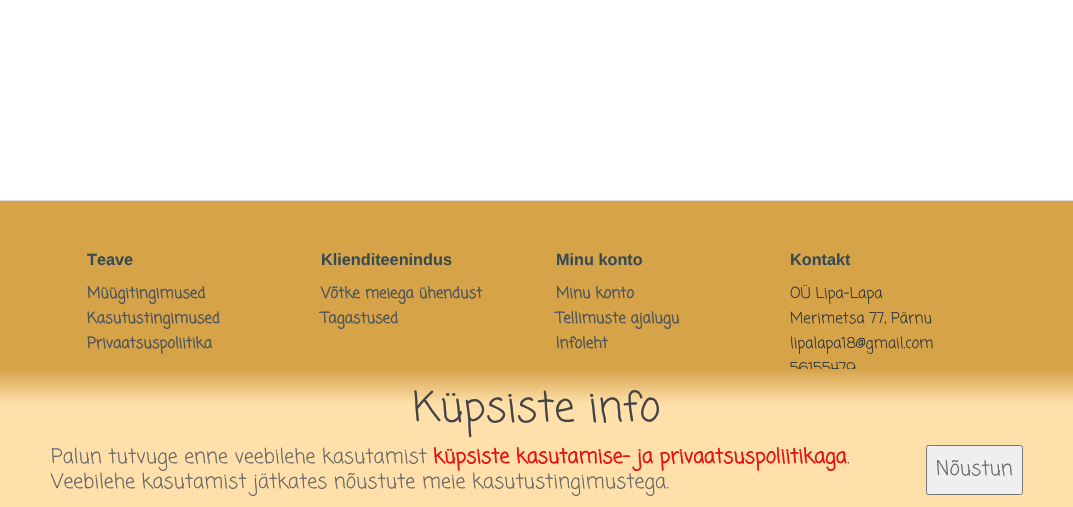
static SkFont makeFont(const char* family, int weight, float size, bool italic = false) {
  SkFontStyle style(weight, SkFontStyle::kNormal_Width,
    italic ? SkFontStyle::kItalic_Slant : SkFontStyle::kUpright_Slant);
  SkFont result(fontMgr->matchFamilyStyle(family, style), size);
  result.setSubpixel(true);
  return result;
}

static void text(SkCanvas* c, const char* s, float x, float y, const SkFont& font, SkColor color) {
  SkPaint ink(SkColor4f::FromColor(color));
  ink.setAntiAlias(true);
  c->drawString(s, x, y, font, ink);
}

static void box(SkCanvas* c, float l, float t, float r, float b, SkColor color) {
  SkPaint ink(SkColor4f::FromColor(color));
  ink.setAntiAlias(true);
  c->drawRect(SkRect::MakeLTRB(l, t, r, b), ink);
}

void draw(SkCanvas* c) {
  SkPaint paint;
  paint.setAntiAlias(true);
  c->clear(0xffffffff);
  box(c, 0, 201, 1073, 369, 0xffd7a349);
  box(c, 0, 200, 1073, 201, 0xffdddddd);
  SkFont face1 = makeFont("Liberation Sans", 700, 16.25f);
  text(c, "Teave", 87, 265, face1, 0xff364a52);
  SkFont face2 = makeFont("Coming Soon", 700, 15);
  text(c, "Müügitingimused", 87, 298, face2, 0xff4e565a);
  text(c, "Kasutustingimused", 87, 323, face2, 0xff4e565a);
  text(c, "Privaatsuspoliitika", 87, 348, face2, 0xff4e565a);
  text(c, "Klienditeenindus", 321, 265, face1, 0xff364a52);
  text(c, "Võtke meiega ühendust", 321, 298, face2, 0xff4e565a);
  text(c, "Tagastused", 321, 323, face2, 0xff4e565a);
  text(c, "Minu konto", 556, 265, face1, 0xff364a52);
  text(c, "Minu konto", 556, 298, face2, 0xff4e565a);
  text(c, "Tellimuste ajalugu", 556, 323, face2, 0xff4e565a);
  text(c, "Infoleht", 556, 348, face2, 0xff4e565a);
  text(c, "Kontakt", 790, 265, face1, 0xff364a52);
  SkFont face3 = makeFont("Coming Soon", 400, 15);
  text(c, "OÜ Lipa-Lapa", 790, 298, face3, 0xff273237);
  text(c, "Merimetsa 77, Pärnu", 790, 323, face3, 0xff273237);
  text(c, "lipalapa18@gmail.com", 790, 348, face3, 0xff273237);
  text(c, "56155479", 790, 373, face3, 0xff273237);
  {
    const SkColor colors[] = {0xffffe0aa, 0xffffe0aa, 0xffd6a34a};
    const float stops[] = {0, 0.75f, 1};
    const SkPoint ends[] = {{537, 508}, {537, 369}};
    paint.setShader(SkGradientShader::MakeLinear(ends, colors, stops, 3, SkTileMode::kClamp));
    paint.setAlpha(255);
  }
  c->drawRect(SkRect::MakeLTRB(0, 369, 1073, 507), paint);
  SkFont face4 = makeFont("Coming Soon", 400, 41.25f);
  text(c, "Küpsiste info", 413, 421, face4, 0xff444444);
  SkFont face5 = makeFont("Coming Soon", 400, 20);
  text(c, "Palun tutvuge enne veebilehe kasutamist", 51, 463, face5, 0xff666666);
  SkFont face6 = makeFont("Coming Soon", 700, 20);
  text(c, "küpsiste kasutamise- ja privaatsuspoliitikaga", 433, 463, face6, 0xffe51111);
  text(c, ".", 847, 463, face5, 0xff666666);
  text(c, "Veebilehe kasutamist jätkates nõustute meie kasutustingimustega.", 51, 488, face5, 0xff666666);
  paint.setShader(nullptr);
  paint.setColor(0xffefefef);
  c->drawRoundRect(SkRect::MakeLTRB(926.5f, 445.5f, 1022.5f, 494.5f), 2, 2, paint);
  paint.setStyle(SkPaint::kStroke_Style);
  paint.setStrokeWidth(1);
  paint.setColor(0xff767676);
  c->drawRoundRect(SkRect::MakeLTRB(926.5f, 445.5f, 1022.5f, 494.5f), 2, 2, paint);
  text(c, "Nõustun", 936, 475, face5, 0xff666666);
}
